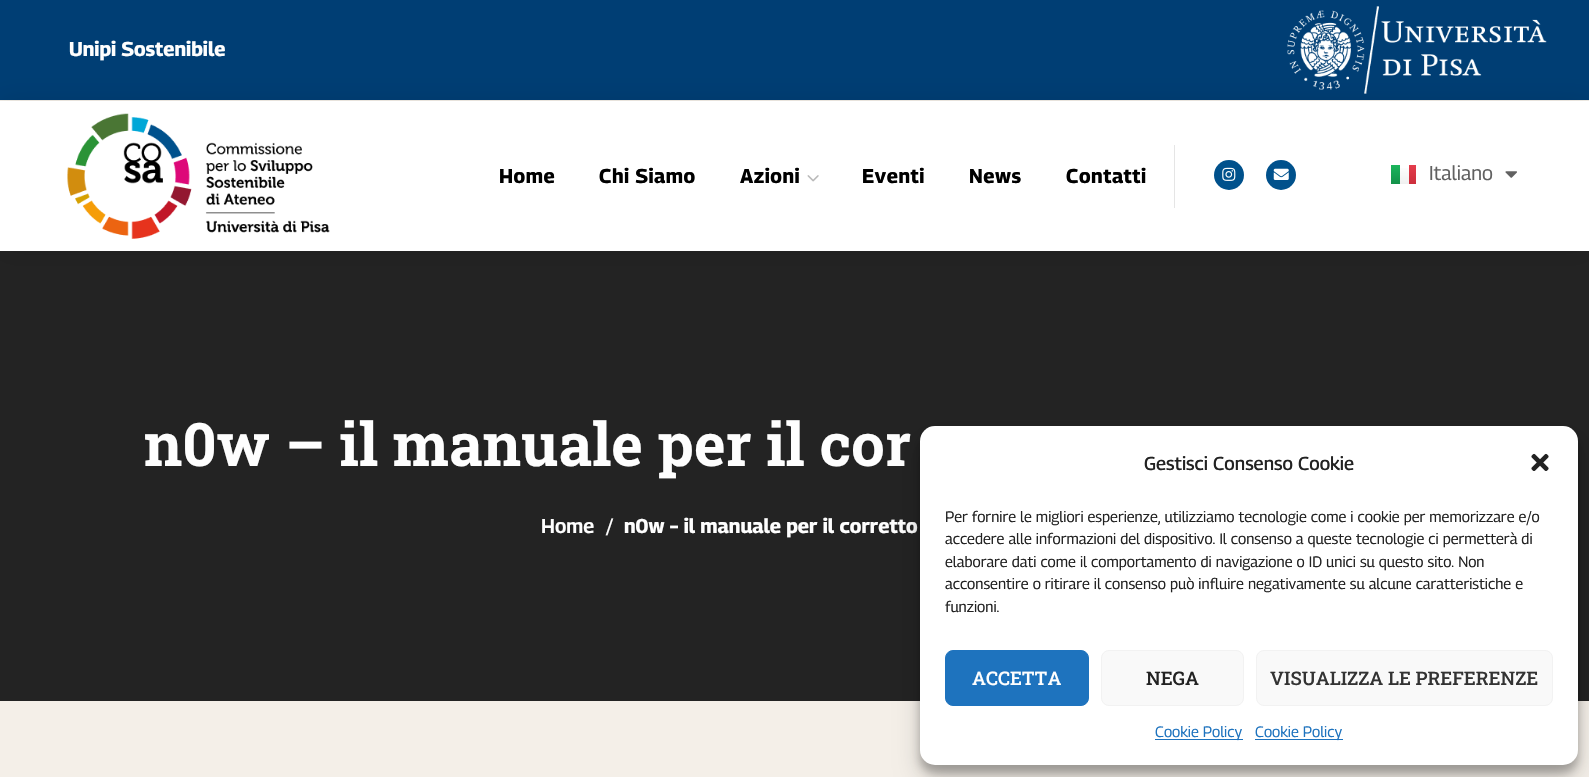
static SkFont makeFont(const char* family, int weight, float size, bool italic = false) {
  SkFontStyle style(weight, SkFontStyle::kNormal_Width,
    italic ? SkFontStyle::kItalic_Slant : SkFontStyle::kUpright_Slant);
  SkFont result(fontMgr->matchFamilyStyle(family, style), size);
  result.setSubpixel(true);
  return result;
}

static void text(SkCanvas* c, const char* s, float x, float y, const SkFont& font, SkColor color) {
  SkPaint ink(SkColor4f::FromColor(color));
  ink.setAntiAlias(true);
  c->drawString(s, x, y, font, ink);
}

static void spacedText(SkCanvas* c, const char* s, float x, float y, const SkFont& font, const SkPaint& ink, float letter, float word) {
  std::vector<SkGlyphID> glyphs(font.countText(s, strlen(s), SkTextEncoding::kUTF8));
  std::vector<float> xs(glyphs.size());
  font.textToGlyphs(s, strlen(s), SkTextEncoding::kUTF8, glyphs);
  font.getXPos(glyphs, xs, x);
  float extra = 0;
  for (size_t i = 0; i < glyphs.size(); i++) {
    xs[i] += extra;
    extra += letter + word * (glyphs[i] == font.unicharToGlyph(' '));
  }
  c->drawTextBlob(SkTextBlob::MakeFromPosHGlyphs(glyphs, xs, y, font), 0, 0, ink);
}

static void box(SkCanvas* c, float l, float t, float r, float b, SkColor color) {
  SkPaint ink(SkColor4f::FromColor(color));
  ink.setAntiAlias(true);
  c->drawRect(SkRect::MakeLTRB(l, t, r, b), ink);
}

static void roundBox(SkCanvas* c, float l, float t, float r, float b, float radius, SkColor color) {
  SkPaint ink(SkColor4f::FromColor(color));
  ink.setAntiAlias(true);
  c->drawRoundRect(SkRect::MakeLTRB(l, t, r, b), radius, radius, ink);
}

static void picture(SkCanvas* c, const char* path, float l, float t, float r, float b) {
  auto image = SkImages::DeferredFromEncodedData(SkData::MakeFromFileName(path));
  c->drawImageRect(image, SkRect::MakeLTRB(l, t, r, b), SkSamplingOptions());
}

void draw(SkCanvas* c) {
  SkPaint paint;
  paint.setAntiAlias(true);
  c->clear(0xfff4efe8);
  box(c, 0, 0, 1589, 100, 0xff003e74);
  SkFont face1 = makeFont("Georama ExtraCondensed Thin", 700, 20);
  text(c, "Unipi Sostenibile", 69, 56, face1, 0xfffefefe);
  picture(c, "img_01.png", 1287, 6, 1547, 94);
  box(c, 0, 251, 1589, 701, 0xff232323);
  paint.setColor(0x1a000000);
  paint.setMaskFilter(SkMaskFilter::MakeBlur(kNormal_SkBlurStyle, 12.5f));
  c->drawRect(SkRect::MakeLTRB(0, 101, 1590, 251), paint);
  paint.setMaskFilter(nullptr);
  box(c, 0, 101, 1589, 251, 0xffffffff);
  picture(c, "img_02.png", 67, 113, 330, 239);
  paint.setColor(0xff000000);
  spacedText(c, "Home", 499, 183, face1, paint, 0.5f, 0);
  spacedText(c, "Chi Siamo", 599, 183, face1, paint, 0.5f, 0);
  spacedText(c, "Azioni", 740, 183, face1, paint, 0.5f, 0);
  picture(c, "img_03.png", 807, 175, 819, 182);
  spacedText(c, "Eventi", 862, 183, face1, paint, 0.5f, 0);
  spacedText(c, "News", 969, 183, face1, paint, 0.5f, 0);
  spacedText(c, "Contatti", 1066, 183, face1, paint, 0.5f, 0);
  box(c, 1174, 145, 1175, 208, 0xffe5e5e5);
  paint.setColor(0xff00518c);
  c->drawCircle(1229, 175, 15, paint);
  picture(c, "img_04.png", 1222, 167, 1236, 181);
  c->drawCircle(1281, 175, 15, paint);
  picture(c, "img_05.png", 1273, 168, 1289, 180);
  {
    const SkColor colors[] = {0xff1bb65d, 0xff139149};
    const float stops[] = {0, 1};
    const SkPoint ends[] = {{1396, 165}, {1396, 184}};
    paint.setShader(SkGradientShader::MakeLinear(ends, colors, stops, 2, SkTileMode::kClamp));
    paint.setAlpha(255);
  }
  c->drawRect(SkRect::MakeLTRB(1391, 165, 1400, 184), paint);
  {
    const SkColor colors[] = {0xffffffff, 0xfff0f0f0};
    const float stops[] = {0, 1};
    const SkPoint ends[] = {{1404, 165}, {1404, 184}};
    paint.setShader(SkGradientShader::MakeLinear(ends, colors, stops, 2, SkTileMode::kClamp));
    paint.setAlpha(255);
  }
  c->drawRect(SkRect::MakeLTRB(1400, 168, 1409, 184), paint);
  {
    const SkColor colors[] = {0xffe43d4c, 0xffcc2e3c};
    const float stops[] = {0, 1};
    const SkPoint ends[] = {{1411, 165}, {1411, 184}};
    paint.setShader(SkGradientShader::MakeLinear(ends, colors, stops, 2, SkTileMode::kClamp));
    paint.setAlpha(255);
  }
  c->drawRect(SkRect::MakeLTRB(1409, 165, 1416, 184), paint);
  SkFont face2 = makeFont("Georama ExtraCondensed Thin", 400, 20);
  text(c, "Italiano", 1429, 180, face2, 0xff616161);
  picture(c, "img_06.png", 1505, 171, 1517, 178);
  SkFont face3 = makeFont("Roboto Slab", 700, 60);
  text(c, "n0w – il manuale per il cor", 144, 466, face3, 0xfffefefe);
  SkFont face4 = makeFont("Georama ExtraCondensed Thin", 600, 20);
  text(c, "Home", 541, 533, face4, 0xfffefefe);
  SkFont face5 = makeFont("Liberation Serif", 700, 25);
  text(c, "/", 606, 535, face5, 0xfffefefe);
  text(c, "n0w – il manuale per il corretto", 624, 533, face1, 0xfffefefe);
  paint.setShader(nullptr);
  paint.setColor(0x3b000000);
  paint.setMaskFilter(SkMaskFilter::MakeBlur(kNormal_SkBlurStyle, 4));
  c->drawRoundRect(SkRect::MakeLTRB(920, 434, 1578, 773), 15, 15, paint);
  paint.setMaskFilter(nullptr);
  paint.setColor(0x30000000);
  paint.setMaskFilter(SkMaskFilter::MakeBlur(kNormal_SkBlurStyle, 12.5f));
  c->drawRoundRect(SkRect::MakeLTRB(920, 439, 1578, 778), 15, 15, paint);
  paint.setMaskFilter(nullptr);
  roundBox(c, 920, 426, 1578, 765, 15, 0xffffffff);
  SkFont face6 = makeFont("Georama ExtraCondensed Thin", 500, 18.75f);
  text(c, "Gestisci Consenso Cookie", 1144, 470, face6, 0xff222222);
  picture(c, "img_07.png", 1531, 453, 1549, 471);
  SkFont face7 = makeFont("Georama ExtraCondensed Thin", 400, 15);
  text(c, "Per fornire le migliori esperienze, utilizziamo tecnologie come i cookie per memorizzare e/o", 945, 522, face7, 0xff222222);
  text(c, "accedere alle informazioni del dispositivo. Il consenso a queste tecnologie ci permetterà di", 945, 544, face7, 0xff222222);
  text(c, "elaborare dati come il comportamento di navigazione o ID unici su questo sito. Non", 945, 567, face7, 0xff222222);
  text(c, "acconsentire o ritirare il consenso può influire negativamente su alcune caratteristiche e", 945, 589, face7, 0xff222222);
  text(c, "funzioni.", 945, 612, face7, 0xff222222);
  paint.setColor(0xff1e73be);
  c->drawRoundRect(SkRect::MakeLTRB(945.5f, 650.5f, 1088.5f, 705.5f), 7.5f, 7.5f, paint);
  paint.setStyle(SkPaint::kStroke_Style);
  paint.setStrokeWidth(1);
  c->drawRoundRect(SkRect::MakeLTRB(945.5f, 650.5f, 1088.5f, 705.5f), 7.5f, 7.5f, paint);
  SkFont face8 = makeFont("Roboto Slab", 500, 18.75f);
  text(c, "ACCETTA", 972, 685, face8, 0xfffefefe);
  paint.setStyle(SkPaint::kFill_Style);
  paint.setColor(0xfff9f9f9);
  c->drawRoundRect(SkRect::MakeLTRB(1101.5f, 650.5f, 1243.5f, 705.5f), 7.5f, 7.5f, paint);
  paint.setStyle(SkPaint::kStroke_Style);
  paint.setColor(0xfff2f2f2);
  c->drawRoundRect(SkRect::MakeLTRB(1101.5f, 650.5f, 1243.5f, 705.5f), 7.5f, 7.5f, paint);
  text(c, "NEGA", 1146, 685, face8, 0xff222222);
  paint.setStyle(SkPaint::kFill_Style);
  paint.setColor(0xfff9f9f9);
  c->drawRoundRect(SkRect::MakeLTRB(1256.5f, 650.5f, 1552.5f, 705.5f), 7.5f, 7.5f, paint);
  paint.setStyle(SkPaint::kStroke_Style);
  paint.setColor(0xfff2f2f2);
  c->drawRoundRect(SkRect::MakeLTRB(1256.5f, 650.5f, 1552.5f, 705.5f), 7.5f, 7.5f, paint);
  text(c, "VISUALIZZA LE PREFERENZE", 1270, 685, face8, 0xff333333);
  box(c, 1155, 739, 1243, 740, 0xff1e73be);
  text(c, "Cookie Policy", 1155, 737, face7, 0xff1e73be);
  box(c, 1255, 739, 1343, 740, 0xff1e73be);
  text(c, "Cookie Policy", 1255, 737, face7, 0xff1e73be);
}
